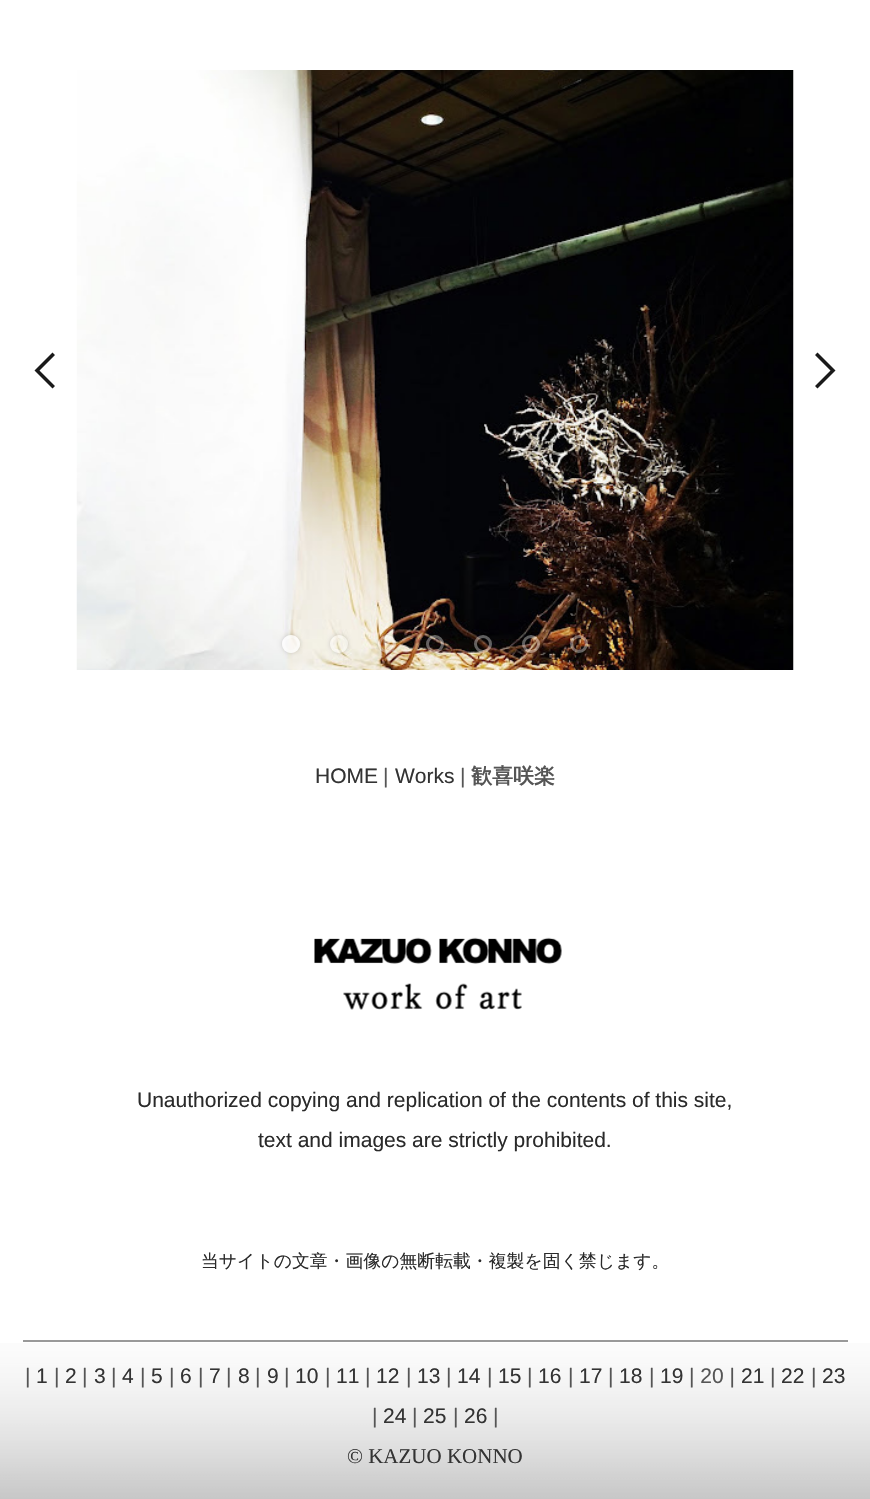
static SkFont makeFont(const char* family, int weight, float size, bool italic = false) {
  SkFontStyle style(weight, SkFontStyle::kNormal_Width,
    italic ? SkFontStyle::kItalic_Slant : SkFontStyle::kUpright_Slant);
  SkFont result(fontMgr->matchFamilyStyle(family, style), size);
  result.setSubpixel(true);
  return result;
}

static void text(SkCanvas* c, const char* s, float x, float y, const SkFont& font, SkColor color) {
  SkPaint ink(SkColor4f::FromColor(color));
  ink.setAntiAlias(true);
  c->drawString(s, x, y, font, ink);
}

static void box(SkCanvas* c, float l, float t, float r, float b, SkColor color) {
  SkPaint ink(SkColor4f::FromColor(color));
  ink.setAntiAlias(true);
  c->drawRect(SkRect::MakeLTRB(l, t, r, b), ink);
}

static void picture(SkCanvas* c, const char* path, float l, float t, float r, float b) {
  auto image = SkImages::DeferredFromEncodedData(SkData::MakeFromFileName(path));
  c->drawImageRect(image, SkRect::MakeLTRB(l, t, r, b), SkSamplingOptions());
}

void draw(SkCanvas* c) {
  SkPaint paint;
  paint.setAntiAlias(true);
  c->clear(0xffffffff);
  picture(c, "img_01.png", 0, 1343, 870, 1499);
  paint.setColor(0xff1a1a1a);
  c->drawPath(SkPathBuilder().moveTo(55, 386).lineTo(39.5f, 370.5f).lineTo(55, 355).lineTo(52.5f, 352.5f).lineTo(34.5f, 370.5f).lineTo(52.5f, 388.5f).close().detach(), paint);
  picture(c, "img_02.png", 76, 70, 794, 670);
  c->drawPath(SkPathBuilder().moveTo(815, 386).lineTo(830.5f, 370.5f).lineTo(815, 355).lineTo(817.5f, 352.5f).lineTo(835.5f, 370.5f).lineTo(817.5f, 388.5f).close().detach(), paint);
  c->save();
  c->clipPath(SkPathBuilder(SkPathFillType::kEvenOdd).moveTo(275, 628).lineTo(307, 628).lineTo(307, 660).lineTo(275, 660).close().moveTo(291, 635).cubicTo(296, 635, 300, 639, 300, 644).cubicTo(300, 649, 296, 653, 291, 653).cubicTo(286, 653, 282, 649, 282, 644).cubicTo(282, 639, 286, 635, 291, 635).close().detach(), true);
  paint.setColor(0x2e000000);
  paint.setMaskFilter(SkMaskFilter::MakeBlur(kNormal_SkBlurStyle, 2));
  c->drawRoundRect(SkRect::MakeLTRB(282, 635, 300, 653), 9, 9, paint);
  paint.setMaskFilter(nullptr);
  c->restore();
  paint.setStyle(SkPaint::kStroke_Style);
  paint.setStrokeWidth(3);
  paint.setColor(0x5cffffff);
  c->drawCircle(291, 644, 7.5f, paint);
  paint.setStyle(SkPaint::kFill_Style);
  paint.setColor(0x99ffffff);
  c->drawCircle(291, 644, 9, paint);
  c->save();
  c->clipPath(SkPathBuilder(SkPathFillType::kEvenOdd).moveTo(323, 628).lineTo(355, 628).lineTo(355, 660).lineTo(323, 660).close().moveTo(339, 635).cubicTo(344, 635, 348, 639, 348, 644).cubicTo(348, 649, 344, 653, 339, 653).cubicTo(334, 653, 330, 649, 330, 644).cubicTo(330, 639, 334, 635, 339, 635).close().detach(), true);
  paint.setColor(0x2e000000);
  paint.setMaskFilter(SkMaskFilter::MakeBlur(kNormal_SkBlurStyle, 2));
  c->drawRoundRect(SkRect::MakeLTRB(330, 635, 348, 653), 9, 9, paint);
  paint.setMaskFilter(nullptr);
  c->restore();
  paint.setStyle(SkPaint::kStroke_Style);
  paint.setColor(0x5cffffff);
  c->drawCircle(339, 644, 7.5f, paint);
  c->save();
  c->clipPath(SkPathBuilder(SkPathFillType::kEvenOdd).moveTo(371, 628).lineTo(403, 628).lineTo(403, 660).lineTo(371, 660).close().moveTo(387, 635).cubicTo(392, 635, 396, 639, 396, 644).cubicTo(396, 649, 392, 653, 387, 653).cubicTo(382, 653, 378, 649, 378, 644).cubicTo(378, 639, 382, 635, 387, 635).close().detach(), true);
  paint.setStyle(SkPaint::kFill_Style);
  paint.setColor(0x2e000000);
  paint.setMaskFilter(SkMaskFilter::MakeBlur(kNormal_SkBlurStyle, 2));
  c->drawRoundRect(SkRect::MakeLTRB(378, 635, 396, 653), 9, 9, paint);
  paint.setMaskFilter(nullptr);
  c->restore();
  paint.setStyle(SkPaint::kStroke_Style);
  paint.setColor(0x5cffffff);
  c->drawCircle(387, 644, 7.5f, paint);
  c->save();
  c->clipPath(SkPathBuilder(SkPathFillType::kEvenOdd).moveTo(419, 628).lineTo(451, 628).lineTo(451, 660).lineTo(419, 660).close().moveTo(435, 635).cubicTo(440, 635, 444, 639, 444, 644).cubicTo(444, 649, 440, 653, 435, 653).cubicTo(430, 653, 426, 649, 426, 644).cubicTo(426, 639, 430, 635, 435, 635).close().detach(), true);
  paint.setStyle(SkPaint::kFill_Style);
  paint.setColor(0x2e000000);
  paint.setMaskFilter(SkMaskFilter::MakeBlur(kNormal_SkBlurStyle, 2));
  c->drawRoundRect(SkRect::MakeLTRB(426, 635, 444, 653), 9, 9, paint);
  paint.setMaskFilter(nullptr);
  c->restore();
  paint.setStyle(SkPaint::kStroke_Style);
  paint.setColor(0x5cffffff);
  c->drawCircle(435, 644, 7.5f, paint);
  c->save();
  c->clipPath(SkPathBuilder(SkPathFillType::kEvenOdd).moveTo(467, 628).lineTo(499, 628).lineTo(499, 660).lineTo(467, 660).close().moveTo(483, 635).cubicTo(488, 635, 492, 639, 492, 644).cubicTo(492, 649, 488, 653, 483, 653).cubicTo(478, 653, 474, 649, 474, 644).cubicTo(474, 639, 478, 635, 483, 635).close().detach(), true);
  paint.setStyle(SkPaint::kFill_Style);
  paint.setColor(0x2e000000);
  paint.setMaskFilter(SkMaskFilter::MakeBlur(kNormal_SkBlurStyle, 2));
  c->drawRoundRect(SkRect::MakeLTRB(474, 635, 492, 653), 9, 9, paint);
  paint.setMaskFilter(nullptr);
  c->restore();
  paint.setStyle(SkPaint::kStroke_Style);
  paint.setColor(0x5cffffff);
  c->drawCircle(483, 644, 7.5f, paint);
  c->save();
  c->clipPath(SkPathBuilder(SkPathFillType::kEvenOdd).moveTo(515, 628).lineTo(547, 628).lineTo(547, 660).lineTo(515, 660).close().moveTo(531, 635).cubicTo(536, 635, 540, 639, 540, 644).cubicTo(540, 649, 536, 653, 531, 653).cubicTo(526, 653, 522, 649, 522, 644).cubicTo(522, 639, 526, 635, 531, 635).close().detach(), true);
  paint.setStyle(SkPaint::kFill_Style);
  paint.setColor(0x2e000000);
  paint.setMaskFilter(SkMaskFilter::MakeBlur(kNormal_SkBlurStyle, 2));
  c->drawRoundRect(SkRect::MakeLTRB(522, 635, 540, 653), 9, 9, paint);
  paint.setMaskFilter(nullptr);
  c->restore();
  paint.setStyle(SkPaint::kStroke_Style);
  paint.setColor(0x5cffffff);
  c->drawCircle(531, 644, 7.5f, paint);
  c->save();
  c->clipPath(SkPathBuilder(SkPathFillType::kEvenOdd).moveTo(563, 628).lineTo(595, 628).lineTo(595, 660).lineTo(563, 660).close().moveTo(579, 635).cubicTo(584, 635, 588, 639, 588, 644).cubicTo(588, 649, 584, 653, 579, 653).cubicTo(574, 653, 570, 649, 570, 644).cubicTo(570, 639, 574, 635, 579, 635).close().detach(), true);
  paint.setStyle(SkPaint::kFill_Style);
  paint.setColor(0x2e000000);
  paint.setMaskFilter(SkMaskFilter::MakeBlur(kNormal_SkBlurStyle, 2));
  c->drawRoundRect(SkRect::MakeLTRB(570, 635, 588, 653), 9, 9, paint);
  paint.setMaskFilter(nullptr);
  c->restore();
  paint.setStyle(SkPaint::kStroke_Style);
  paint.setColor(0x5cffffff);
  c->drawCircle(579, 644, 7.5f, paint);
  SkFont face1 = makeFont("Liberation Sans", 400, 21);
  text(c, "HOME", 315, 783, face1, 0xff333333);
  text(c, "|", 383, 783, face1, 0xff555555);
  text(c, "Works", 395, 783, face1, 0xff333333);
  text(c, "|", 460, 783, face1, 0xff555555);
  SkFont face2 = makeFont("WenQuanYi Zen Hei", 700, 21);
  text(c, "歓喜咲楽", 471, 783, face2, 0xff555555);
  picture(c, "img_03.png", 314, 937, 562, 1010);
  text(c, "Unauthorized copying and replication of the contents of this site,", 137, 1107, face1, 0xff2a2a2a);
  text(c, "text and images are strictly prohibited.", 258, 1147, face1, 0xff2a2a2a);
  SkFont face3 = makeFont("WenQuanYi Zen Hei", 500, 17.85f);
  text(c, "当サイトの文章・画像の無断転載・複製を固く禁じます。", 201, 1267, face3, 0xff2a2a2a);
  box(c, 23, 1340, 848, 1342, 0xff999999);
  text(c, "|", 25, 1383, face1, 0xff555555);
  text(c, "1", 36, 1383, face1, 0xff333333);
  text(c, "|", 54, 1383, face1, 0xff555555);
  text(c, "2", 65, 1383, face1, 0xff333333);
  text(c, "|", 82, 1383, face1, 0xff555555);
  text(c, "3", 94, 1383, face1, 0xff333333);
  text(c, "|", 111, 1383, face1, 0xff555555);
  text(c, "4", 122, 1383, face1, 0xff333333);
  text(c, "|", 140, 1383, face1, 0xff555555);
  text(c, "5", 151, 1383, face1, 0xff333333);
  text(c, "|", 169, 1383, face1, 0xff555555);
  text(c, "6", 180, 1383, face1, 0xff333333);
  text(c, "|", 198, 1383, face1, 0xff555555);
  text(c, "7", 209, 1383, face1, 0xff333333);
  text(c, "|", 226, 1383, face1, 0xff555555);
  text(c, "8", 238, 1383, face1, 0xff333333);
  text(c, "|", 255, 1383, face1, 0xff555555);
  text(c, "9", 267, 1383, face1, 0xff333333);
  text(c, "|", 284, 1383, face1, 0xff555555);
  text(c, "10", 295, 1383, face1, 0xff333333);
  text(c, "|", 325, 1383, face1, 0xff555555);
  text(c, "11", 336, 1383, face1, 0xff333333);
  text(c, "|", 365, 1383, face1, 0xff555555);
  text(c, "12", 376, 1383, face1, 0xff333333);
  text(c, "|", 406, 1383, face1, 0xff555555);
  text(c, "13", 417, 1383, face1, 0xff333333);
  text(c, "|", 446, 1383, face1, 0xff555555);
  text(c, "14", 457, 1383, face1, 0xff333333);
  text(c, "|", 487, 1383, face1, 0xff555555);
  text(c, "15", 498, 1383, face1, 0xff333333);
  text(c, "|", 527, 1383, face1, 0xff555555);
  text(c, "16", 538, 1383, face1, 0xff333333);
  text(c, "|", 568, 1383, face1, 0xff555555);
  text(c, "17", 579, 1383, face1, 0xff333333);
  text(c, "|", 608, 1383, face1, 0xff555555);
  text(c, "18", 619, 1383, face1, 0xff333333);
  text(c, "|", 649, 1383, face1, 0xff555555);
  text(c, "19", 660, 1383, face1, 0xff333333);
  text(c, "| 20 |", 689, 1383, face1, 0xff555555);
  text(c, "21", 741, 1383, face1, 0xff333333);
  text(c, "|", 770, 1383, face1, 0xff555555);
  text(c, "22", 781, 1383, face1, 0xff333333);
  text(c, "|", 811, 1383, face1, 0xff555555);
  text(c, "23", 822, 1383, face1, 0xff333333);
  text(c, "|", 372, 1423, face1, 0xff555555);
  text(c, "24", 383, 1423, face1, 0xff333333);
  text(c, "|", 412, 1423, face1, 0xff555555);
  text(c, "25", 423, 1423, face1, 0xff333333);
  text(c, "|", 453, 1423, face1, 0xff555555);
  text(c, "26", 464, 1423, face1, 0xff333333);
  text(c, "|", 493, 1423, face1, 0xff555555);
  SkFont face4 = makeFont("Liberation Serif", 400, 21);
  text(c, "© KAZUO KONNO", 347, 1463, face4, 0xff333333);
}
